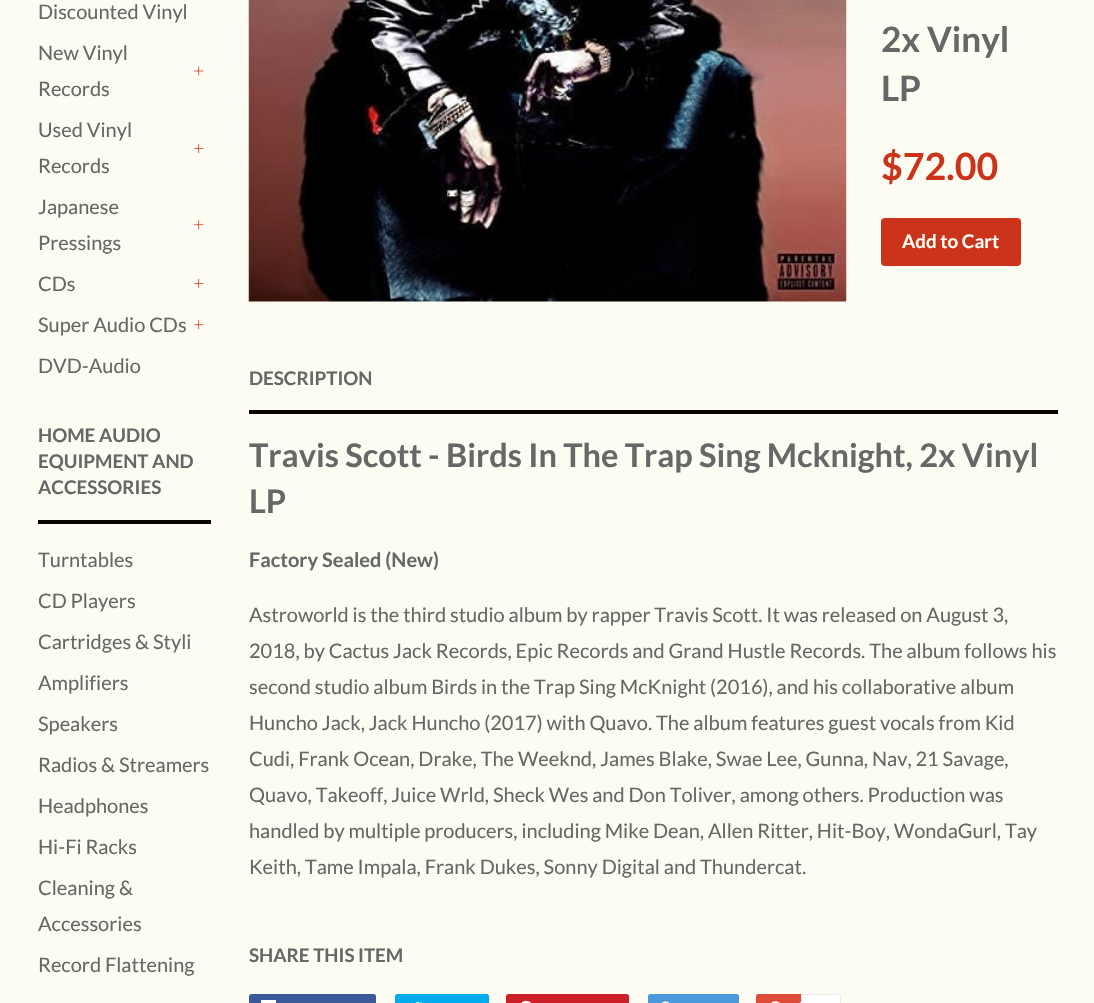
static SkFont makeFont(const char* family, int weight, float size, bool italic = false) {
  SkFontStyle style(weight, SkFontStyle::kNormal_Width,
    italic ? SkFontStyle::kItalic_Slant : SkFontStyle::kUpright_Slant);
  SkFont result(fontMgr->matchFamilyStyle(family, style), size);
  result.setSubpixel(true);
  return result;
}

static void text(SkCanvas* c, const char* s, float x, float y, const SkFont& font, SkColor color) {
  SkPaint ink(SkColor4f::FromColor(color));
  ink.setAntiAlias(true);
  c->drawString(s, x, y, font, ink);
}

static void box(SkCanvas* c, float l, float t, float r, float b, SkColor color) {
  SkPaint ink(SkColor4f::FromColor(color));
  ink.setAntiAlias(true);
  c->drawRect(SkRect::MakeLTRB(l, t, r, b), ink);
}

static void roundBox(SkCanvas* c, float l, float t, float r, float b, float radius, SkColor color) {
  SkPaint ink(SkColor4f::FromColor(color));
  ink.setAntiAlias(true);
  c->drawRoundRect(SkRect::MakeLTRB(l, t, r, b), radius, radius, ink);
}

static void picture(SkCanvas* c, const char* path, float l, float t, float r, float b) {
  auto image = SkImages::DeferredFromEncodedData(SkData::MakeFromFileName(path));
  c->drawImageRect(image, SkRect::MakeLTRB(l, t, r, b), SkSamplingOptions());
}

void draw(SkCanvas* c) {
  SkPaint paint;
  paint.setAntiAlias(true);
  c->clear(0xfffdfcf2);
  SkFont face1 = makeFont("Lato", 400, 20);
  text(c, "Discounted Vinyl", 38, 19, face1, 0xff676767);
  text(c, "New Vinyl", 38, 60, face1, 0xff676767);
  text(c, "Records", 38, 96, face1, 0xff676767);
  picture(c, "img_01.png", 194, 66, 204, 76);
  text(c, "Used Vinyl", 38, 137, face1, 0xff676767);
  text(c, "Records", 38, 173, face1, 0xff676767);
  picture(c, "img_02.png", 194, 144, 204, 153);
  text(c, "Japanese", 38, 214, face1, 0xff676767);
  text(c, "Pressings", 38, 250, face1, 0xff676767);
  picture(c, "img_03.png", 194, 220, 204, 230);
  text(c, "CDs", 38, 291, face1, 0xff676767);
  picture(c, "img_02.png", 194, 279, 204, 288);
  text(c, "Super Audio CDs", 38, 332, face1, 0xff676767);
  picture(c, "img_03.png", 194, 320, 204, 330);
  text(c, "DVD-Audio", 38, 373, face1, 0xff676767);
  box(c, 38, 520, 211, 524, 0xff080400);
  SkFont face2 = makeFont("Lato", 700, 18.75f);
  text(c, "HOME AUDIO", 38, 442, face2, 0xff676767);
  text(c, "EQUIPMENT AND", 38, 468, face2, 0xff676767);
  text(c, "ACCESSORIES", 38, 494, face2, 0xff676767);
  text(c, "Turntables", 38, 567, face1, 0xff676767);
  text(c, "CD Players", 38, 608, face1, 0xff676767);
  text(c, "Cartridges & Styli", 38, 649, face1, 0xff676767);
  text(c, "Amplifiers", 38, 690, face1, 0xff676767);
  text(c, "Speakers", 38, 731, face1, 0xff676767);
  text(c, "Radios & Streamers", 38, 772, face1, 0xff676767);
  text(c, "Headphones", 38, 813, face1, 0xff676767);
  text(c, "Hi-Fi Racks", 38, 854, face1, 0xff676767);
  text(c, "Cleaning &", 38, 895, face1, 0xff676767);
  text(c, "Accessories", 38, 931, face1, 0xff676767);
  text(c, "Record Flattening", 38, 972, face1, 0xff676767);
  picture(c, "img_04.png", 248, 0, 847, 302);
  SkFont face3 = makeFont("Lato", 700, 35);
  text(c, "2x Vinyl", 881, 52, face3, 0xff676767);
  text(c, "LP", 881, 101, face3, 0xff676767);
  SkFont face4 = makeFont("Lato", 700, 37.5f);
  text(c, "$72.00", 881, 180, face4, 0xffcc331b);
  roundBox(c, 881, 218, 1021, 266, 4, 0xffcc331b);
  text(c, "Add to Cart", 902, 248, face2, 0xfffdfcf2);
  box(c, 249, 410, 1058, 414, 0xff080400);
  text(c, "DESCRIPTION", 249, 385, face2, 0xff676767);
  SkFont face5 = makeFont("Lato", 700, 32.5f);
  text(c, "Travis Scott - Birds In The Trap Sing Mcknight, 2x Vinyl", 249, 467, face5, 0xff676767);
  text(c, "LP", 249, 513, face5, 0xff676767);
  SkFont face6 = makeFont("Lato", 700, 20);
  text(c, "Factory Sealed (New)", 249, 567, face6, 0xff676767);
  text(c, "Astroworld is the third studio album by rapper Travis Scott. It was released on August 3,", 249, 622, face1, 0xff676767);
  text(c, "2018, by Cactus Jack Records, Epic Records and Grand Hustle Records. The album follows his", 249, 658, face1, 0xff676767);
  text(c, "second studio album Birds in the Trap Sing McKnight (2016), and his collaborative album", 249, 694, face1, 0xff676767);
  text(c, "Huncho Jack, Jack Huncho (2017) with Quavo. The album features guest vocals from Kid", 249, 730, face1, 0xff676767);
  text(c, "Cudi, Frank Ocean, Drake, The Weeknd, James Blake, Swae Lee, Gunna, Nav, 21 Savage,", 249, 766, face1, 0xff676767);
  text(c, "Quavo, Takeoff, Juice Wrld, Sheck Wes and Don Toliver, among others. Production was", 249, 802, face1, 0xff676767);
  text(c, "handled by multiple producers, including Mike Dean, Allen Ritter, Hit-Boy, WondaGurl, Tay", 249, 838, face1, 0xff676767);
  text(c, "Keith, Tame Impala, Frank Dukes, Sonny Digital and Thundercat.", 249, 874, face1, 0xff676767);
  text(c, "SHARE THIS ITEM", 249, 962, face2, 0xff676767);
  roundBox(c, 249, 994, 376, 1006, 2.5f, 0xff3b5998);
  box(c, 261, 1000, 276, 1003, 0xffffffff);
  roundBox(c, 395, 994, 489, 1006, 2.5f, 0xff00aced);
  picture(c, "img_05.png", 408, 1002, 422, 1003);
  roundBox(c, 506, 994, 629, 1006, 2.5f, 0xffcb2027);
  picture(c, "img_06.png", 521, 1000, 532, 1003);
  roundBox(c, 648, 994, 739, 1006, 2.5f, 0xff4999dc);
  picture(c, "img_07.png", 661, 1001, 670, 1003);
  roundBox(c, 756, 994, 839, 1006, 2.5f, 0xffdd4b39);
  picture(c, "img_08.png", 771, 1001, 780, 1003);
  paint.setColor(0xffffffff);
  c->drawPath(SkPathBuilder().moveTo(801.5f, 994.5f).lineTo(838.5f, 994.5f).cubicTo(839.5f, 994.5f, 840.5f, 995.5f, 840.5f, 996.5f).lineTo(840.5f, 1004.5f).cubicTo(840.5f, 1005.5f, 839.5f, 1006.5f, 838.5f, 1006.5f).lineTo(801.5f, 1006.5f).close().detach(), paint);
  paint.setStyle(SkPaint::kStroke_Style);
  paint.setStrokeWidth(1);
  paint.setColor(0xffececec);
  c->drawPath(SkPathBuilder().moveTo(801.5f, 994.5f).lineTo(838.5f, 994.5f).cubicTo(839.5f, 994.5f, 840.5f, 995.5f, 840.5f, 996.5f).lineTo(840.5f, 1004.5f).cubicTo(840.5f, 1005.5f, 839.5f, 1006.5f, 838.5f, 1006.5f).lineTo(801.5f, 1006.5f).close().detach(), paint);
  paint.setStyle(SkPaint::kFill_Style);
  c->drawPath(SkPathBuilder().moveTo(802.5f, 1000).lineTo(802.5f, 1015).lineTo(795, 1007.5f).close().detach(), paint);
  paint.setColor(0xffffffff);
  c->drawPath(SkPathBuilder().moveTo(804, 1000).lineTo(804, 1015).lineTo(796, 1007.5f).close().detach(), paint);
}
